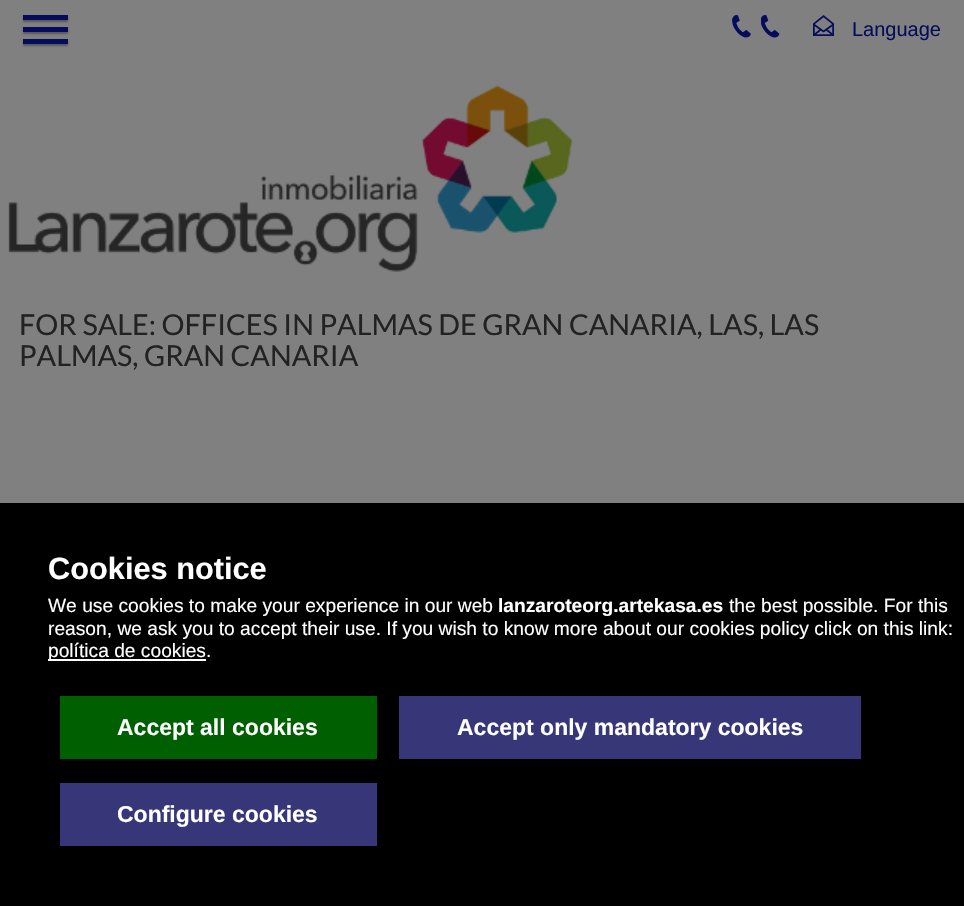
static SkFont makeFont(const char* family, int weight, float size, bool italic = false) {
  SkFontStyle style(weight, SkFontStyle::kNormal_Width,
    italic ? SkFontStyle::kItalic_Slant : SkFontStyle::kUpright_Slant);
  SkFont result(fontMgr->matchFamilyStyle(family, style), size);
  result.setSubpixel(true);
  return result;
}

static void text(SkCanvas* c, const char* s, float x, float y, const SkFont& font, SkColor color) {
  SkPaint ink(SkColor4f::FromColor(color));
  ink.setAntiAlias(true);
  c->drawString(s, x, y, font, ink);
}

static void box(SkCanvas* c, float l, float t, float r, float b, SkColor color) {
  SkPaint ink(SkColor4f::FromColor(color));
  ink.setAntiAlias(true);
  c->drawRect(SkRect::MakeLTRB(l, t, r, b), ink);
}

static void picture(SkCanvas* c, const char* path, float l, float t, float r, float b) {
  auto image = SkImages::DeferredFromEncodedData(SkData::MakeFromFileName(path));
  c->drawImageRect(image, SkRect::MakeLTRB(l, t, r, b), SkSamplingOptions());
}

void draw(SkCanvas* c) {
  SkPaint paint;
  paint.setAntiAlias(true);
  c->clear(0xff808080);
  paint.setColor(0x4d000000);
  paint.setMaskFilter(SkMaskFilter::MakeBlur(kNormal_SkBlurStyle, 1));
  c->drawRect(SkRect::MakeLTRB(23, 17, 68, 22), paint);
  paint.setMaskFilter(nullptr);
  box(c, 23, 15, 68, 20, 0xff050c5b);
  paint.setMaskFilter(SkMaskFilter::MakeBlur(kNormal_SkBlurStyle, 1));
  c->drawRect(SkRect::MakeLTRB(23, 29, 68, 34), paint);
  paint.setMaskFilter(nullptr);
  box(c, 23, 27, 68, 32, 0xff050c5b);
  paint.setMaskFilter(SkMaskFilter::MakeBlur(kNormal_SkBlurStyle, 1));
  c->drawRect(SkRect::MakeLTRB(23, 41, 68, 46), paint);
  paint.setMaskFilter(nullptr);
  box(c, 23, 39, 68, 44, 0xff050c5b);
  picture(c, "img_01.png", 732, 15, 751, 38);
  picture(c, "img_02.png", 761, 15, 780, 38);
  picture(c, "img_03.png", 813, 15, 834, 36);
  SkFont face1 = makeFont("Liberation Sans", 400, 20);
  text(c, "Language", 852, 36, face1, 0xff050c5b);
  picture(c, "img_04.png", 8, 85, 574, 272);
  SkFont face2 = makeFont("Lato", 400, 28.8f);
  text(c, "FOR SALE: OFFICES IN PALMAS DE GRAN CANARIA, LAS, LAS", 19, 335, face2, 0xff222222);
  text(c, "PALMAS, GRAN CANARIA", 19, 366, face2, 0xff222222);
  box(c, 0, 503, 964, 906, 0xff000000);
  SkFont face3 = makeFont("Liberation Sans", 700, 30.75f);
  text(c, "Cookies notice", 48, 579, face3, 0xffffffff);
  SkFont face4 = makeFont("Liberation Sans", 400, 19.2f);
  text(c, "We use cookies to make your experience in our web", 48, 612, face4, 0xffffffff);
  SkFont face5 = makeFont("Liberation Sans", 700, 19.2f);
  text(c, "lanzaroteorg.artekasa.es", 498, 612, face5, 0xffffffff);
  text(c, "the best possible. For this", 729, 612, face4, 0xffffffff);
  text(c, "reason, we ask you to accept their use. If you wish to know more about our cookies policy click on this link:", 48, 635, face4, 0xffffffff);
  box(c, 48, 659, 206, 661, 0xffffffff);
  text(c, "política de cookies.", 48, 657, face4, 0xffffffff);
  box(c, 60, 696, 377, 759, 0xff005f00);
  SkFont face6 = makeFont("Liberation Sans", 700, 23);
  text(c, "Accept all cookies", 117, 735, face6, 0xffffffff);
  box(c, 399, 696, 861, 759, 0xff363679);
  text(c, "Accept only mandatory cookies", 457, 735, face6, 0xffffffff);
  box(c, 60, 783, 377, 846, 0xff363679);
  text(c, "Configure cookies", 117, 822, face6, 0xffffffff);
}
